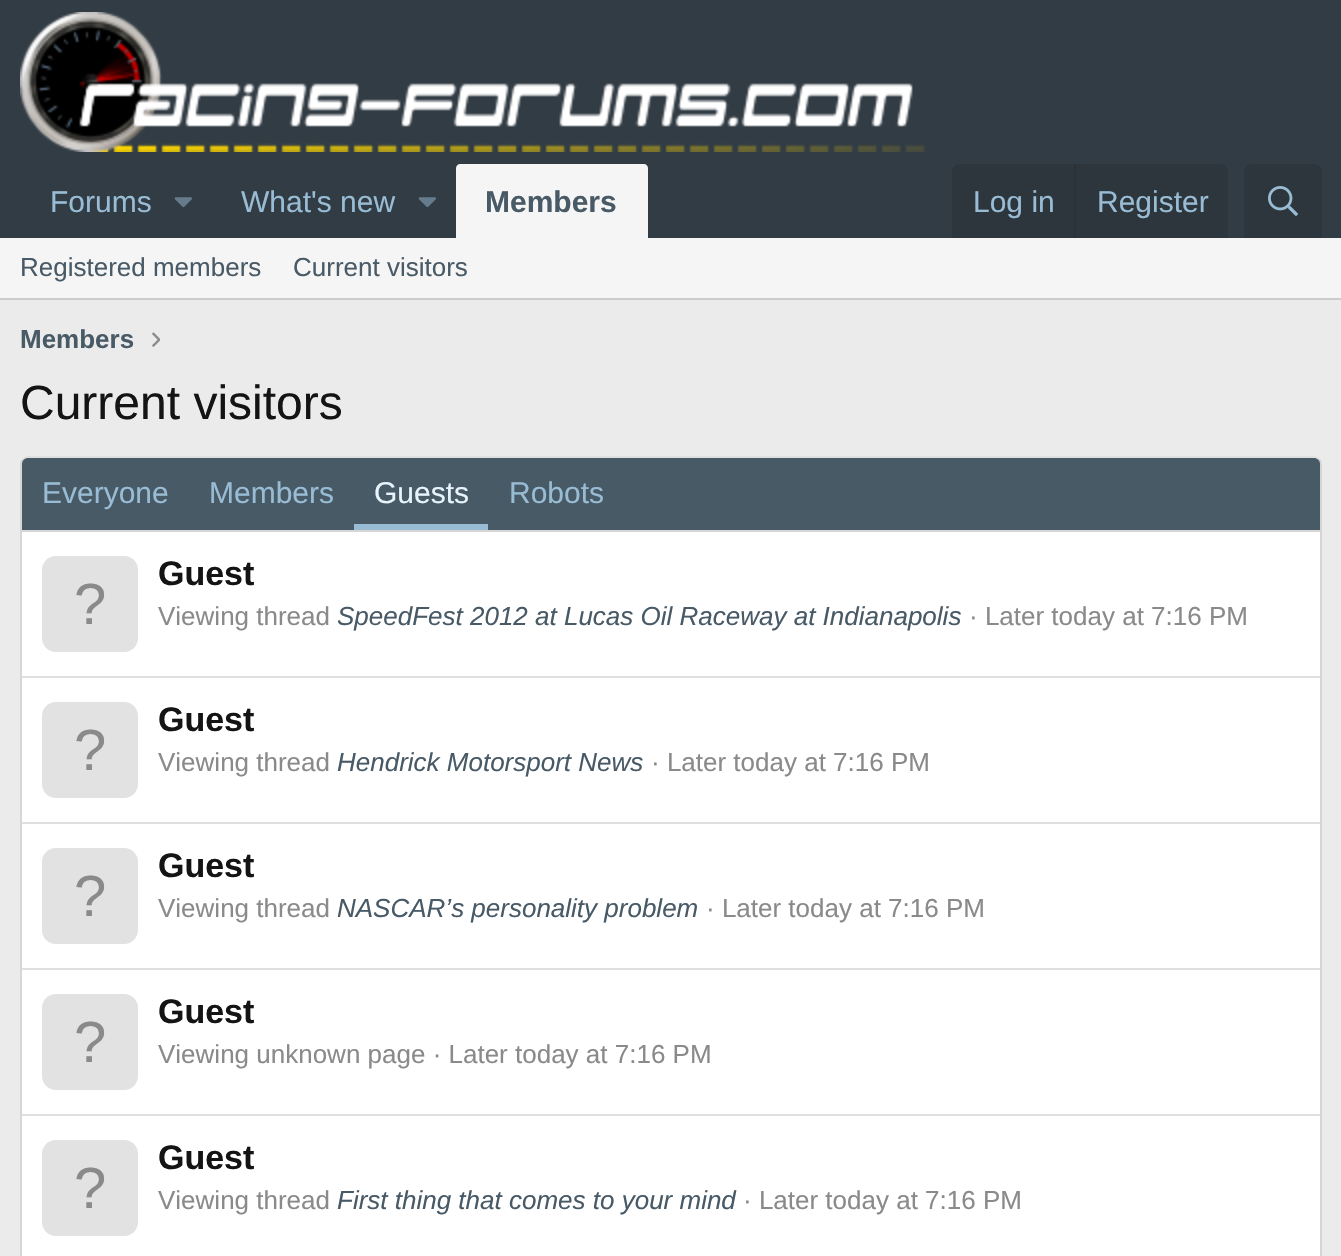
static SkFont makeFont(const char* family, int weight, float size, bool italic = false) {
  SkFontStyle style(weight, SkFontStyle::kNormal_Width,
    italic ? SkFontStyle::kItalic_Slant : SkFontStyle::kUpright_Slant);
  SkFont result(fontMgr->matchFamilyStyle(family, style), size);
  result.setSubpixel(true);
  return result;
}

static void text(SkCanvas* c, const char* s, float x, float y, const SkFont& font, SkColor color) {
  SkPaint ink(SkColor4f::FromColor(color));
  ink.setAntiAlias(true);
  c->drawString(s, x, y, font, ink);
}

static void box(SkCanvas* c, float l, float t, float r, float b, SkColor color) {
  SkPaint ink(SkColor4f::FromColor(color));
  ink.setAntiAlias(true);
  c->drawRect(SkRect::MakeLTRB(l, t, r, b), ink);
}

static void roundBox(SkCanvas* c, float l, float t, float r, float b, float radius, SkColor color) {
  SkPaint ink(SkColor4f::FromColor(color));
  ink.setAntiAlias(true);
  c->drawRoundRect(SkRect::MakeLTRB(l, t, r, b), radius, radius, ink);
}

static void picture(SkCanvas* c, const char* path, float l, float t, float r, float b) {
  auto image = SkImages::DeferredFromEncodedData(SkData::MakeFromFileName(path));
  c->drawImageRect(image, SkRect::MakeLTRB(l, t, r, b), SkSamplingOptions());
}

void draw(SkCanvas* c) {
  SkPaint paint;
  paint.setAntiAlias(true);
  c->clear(0xffebebeb);
  box(c, 0, 0, 1341, 238, 0xff323c44);
  picture(c, "img_01.png", 20, 12, 925, 152);
  SkFont face1 = makeFont("Liberation Sans", 400, 30);
  text(c, "Forums", 50, 212, face1, 0xff99bcd5);
  picture(c, "img_02.png", 174, 197, 192, 208);
  text(c, "What's new", 241, 212, face1, 0xff99bcd5);
  picture(c, "img_02.png", 418, 197, 436, 208);
  paint.setColor(0xfff5f5f5);
  c->drawPath(SkPathBuilder().moveTo(460, 164).lineTo(644, 164).cubicTo(646, 164, 648, 166, 648, 168).lineTo(648, 238).lineTo(456, 238).lineTo(456, 168).cubicTo(456, 166, 458, 164, 460, 164).close().detach(), paint);
  SkFont face2 = makeFont("Liberation Sans", 700, 30);
  text(c, "Members", 485, 212, face2, 0xff495a67);
  paint.setColor(0xff2e363d);
  c->drawPath(SkPathBuilder().moveTo(960, 164).lineTo(1220, 164).cubicTo(1224.5f, 164, 1228, 167.5f, 1228, 172).lineTo(1228, 238).lineTo(952, 238).lineTo(952, 172).cubicTo(952, 167.5f, 955.5f, 164, 960, 164).close().detach(), paint);
  text(c, "Log in", 973, 212, face1, 0xff99bcd5);
  box(c, 1074, 164, 1076, 238, 0xff2a3137);
  text(c, "Register", 1097, 212, face1, 0xff99bcd5);
  c->drawPath(SkPathBuilder().moveTo(1252, 164).lineTo(1314, 164).cubicTo(1318.5f, 164, 1322, 167.5f, 1322, 172).lineTo(1322, 238).lineTo(1244, 238).lineTo(1244, 172).cubicTo(1244, 167.5f, 1247.5f, 164, 1252, 164).close().detach(), paint);
  picture(c, "img_03.png", 1268, 186, 1298, 216);
  box(c, 0, 238, 1341, 298, 0xfff5f5f5);
  box(c, 0, 298, 1341, 300, 0xffcccccc);
  SkFont face3 = makeFont("Liberation Sans", 400, 26);
  text(c, "Registered members", 20, 276, face3, 0xff495a67);
  text(c, "Current visitors", 293, 276, face3, 0xff495a67);
  SkFont face4 = makeFont("Liberation Sans", 700, 26);
  text(c, "Members", 20, 348, face4, 0xff495a67);
  picture(c, "img_04.png", 152, 332, 160, 347);
  SkFont face5 = makeFont("Liberation Sans", 400, 48);
  text(c, "Current visitors", 20, 419, face5, 0xff141414);
  roundBox(c, 20, 456, 1322, 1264, 8, 0xffffffff);
  paint.setStyle(SkPaint::kStroke_Style);
  paint.setStrokeWidth(2);
  paint.setColor(0xffe0e0e0);
  c->drawPath(SkPathBuilder().moveTo(23, 459).cubicTo(24.5f, 457.5f, 26, 457, 28, 457).lineTo(1314, 457).cubicTo(1316, 457, 1317.5f, 457.5f, 1319, 459).detach(), paint);
  paint.setColor(0xffd6d6d6);
  c->drawPath(SkPathBuilder().moveTo(1319, 459).cubicTo(1320.5f, 460.5f, 1321, 462, 1321, 464).lineTo(1321, 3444).cubicTo(1321, 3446, 1320.5f, 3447.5f, 1319, 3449).detach(), paint);
  c->drawPath(SkPathBuilder().moveTo(23, 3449).cubicTo(21.5f, 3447.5f, 21, 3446, 21, 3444).lineTo(21, 464).cubicTo(21, 462, 21.5f, 460.5f, 23, 459).detach(), paint);
  paint.setStyle(SkPaint::kFill_Style);
  paint.setColor(0xff495a67);
  c->drawPath(SkPathBuilder().moveTo(28, 458).lineTo(1314, 458).cubicTo(1317.5f, 458, 1320, 460.5f, 1320, 464).lineTo(1320, 532).lineTo(22, 532).lineTo(22, 464).cubicTo(22, 460.5f, 24.5f, 458, 28, 458).close().detach(), paint);
  box(c, 22, 530, 1320, 532, 0xffd6d6d6);
  text(c, "Everyone", 42, 503, face1, 0xff99bcd5);
  text(c, "Members", 209, 503, face1, 0xff99bcd5);
  box(c, 354, 524, 488, 530, 0xff99bcd5);
  text(c, "Guests", 374, 503, face1, 0xffe8f4fc);
  text(c, "Robots", 509, 503, face1, 0xff99bcd5);
  roundBox(c, 42, 556, 138, 652, 14, 0xffe2e2e2);
  SkFont face6 = makeFont("Liberation Sans", 400, 58);
  text(c, "?", 74, 624, face6, 0xff8a8a8a);
  SkFont face7 = makeFont("Liberation Sans", 700, 34);
  text(c, "Guest", 158, 585, face7, 0xff141414);
  text(c, "Viewing thread", 158, 625, face3, 0xff8a8a8a);
  SkFont face8 = makeFont("Liberation Sans", 400, 26, true);
  text(c, "SpeedFest 2012 at Lucas Oil Raceway at Indianapolis", 337, 625, face8, 0xff495a67);
  text(c, "· Later today at 7:16 PM", 969, 625, face3, 0xff8a8a8a);
  box(c, 22, 676, 1320, 678, 0xffe0e0e0);
  roundBox(c, 42, 702, 138, 798, 14, 0xffe2e2e2);
  text(c, "?", 74, 770, face6, 0xff8a8a8a);
  text(c, "Guest", 158, 731, face7, 0xff141414);
  text(c, "Viewing thread", 158, 771, face3, 0xff8a8a8a);
  text(c, "Hendrick Motorsport News", 337, 771, face8, 0xff495a67);
  text(c, "· Later today at 7:16 PM", 651, 771, face3, 0xff8a8a8a);
  box(c, 22, 822, 1320, 824, 0xffe0e0e0);
  roundBox(c, 42, 848, 138, 944, 14, 0xffe2e2e2);
  text(c, "?", 74, 916, face6, 0xff8a8a8a);
  text(c, "Guest", 158, 877, face7, 0xff141414);
  text(c, "Viewing thread", 158, 917, face3, 0xff8a8a8a);
  text(c, "NASCAR’s personality problem", 337, 917, face8, 0xff495a67);
  text(c, "· Later today at 7:16 PM", 706, 917, face3, 0xff8a8a8a);
  box(c, 22, 968, 1320, 970, 0xffe0e0e0);
  roundBox(c, 42, 994, 138, 1090, 14, 0xffe2e2e2);
  text(c, "?", 74, 1062, face6, 0xff8a8a8a);
  text(c, "Guest", 158, 1023, face7, 0xff141414);
  text(c, "Viewing unknown page · Later today at 7:16 PM", 158, 1063, face3, 0xff8a8a8a);
  box(c, 22, 1114, 1320, 1116, 0xffe0e0e0);
  roundBox(c, 42, 1140, 138, 1236, 14, 0xffe2e2e2);
  text(c, "?", 74, 1208, face6, 0xff8a8a8a);
  text(c, "Guest", 158, 1169, face7, 0xff141414);
  text(c, "Viewing thread", 158, 1209, face3, 0xff8a8a8a);
  text(c, "First thing that comes to your mind", 337, 1209, face8, 0xff495a67);
  text(c, "· Later today at 7:16 PM", 743, 1209, face3, 0xff8a8a8a);
}
